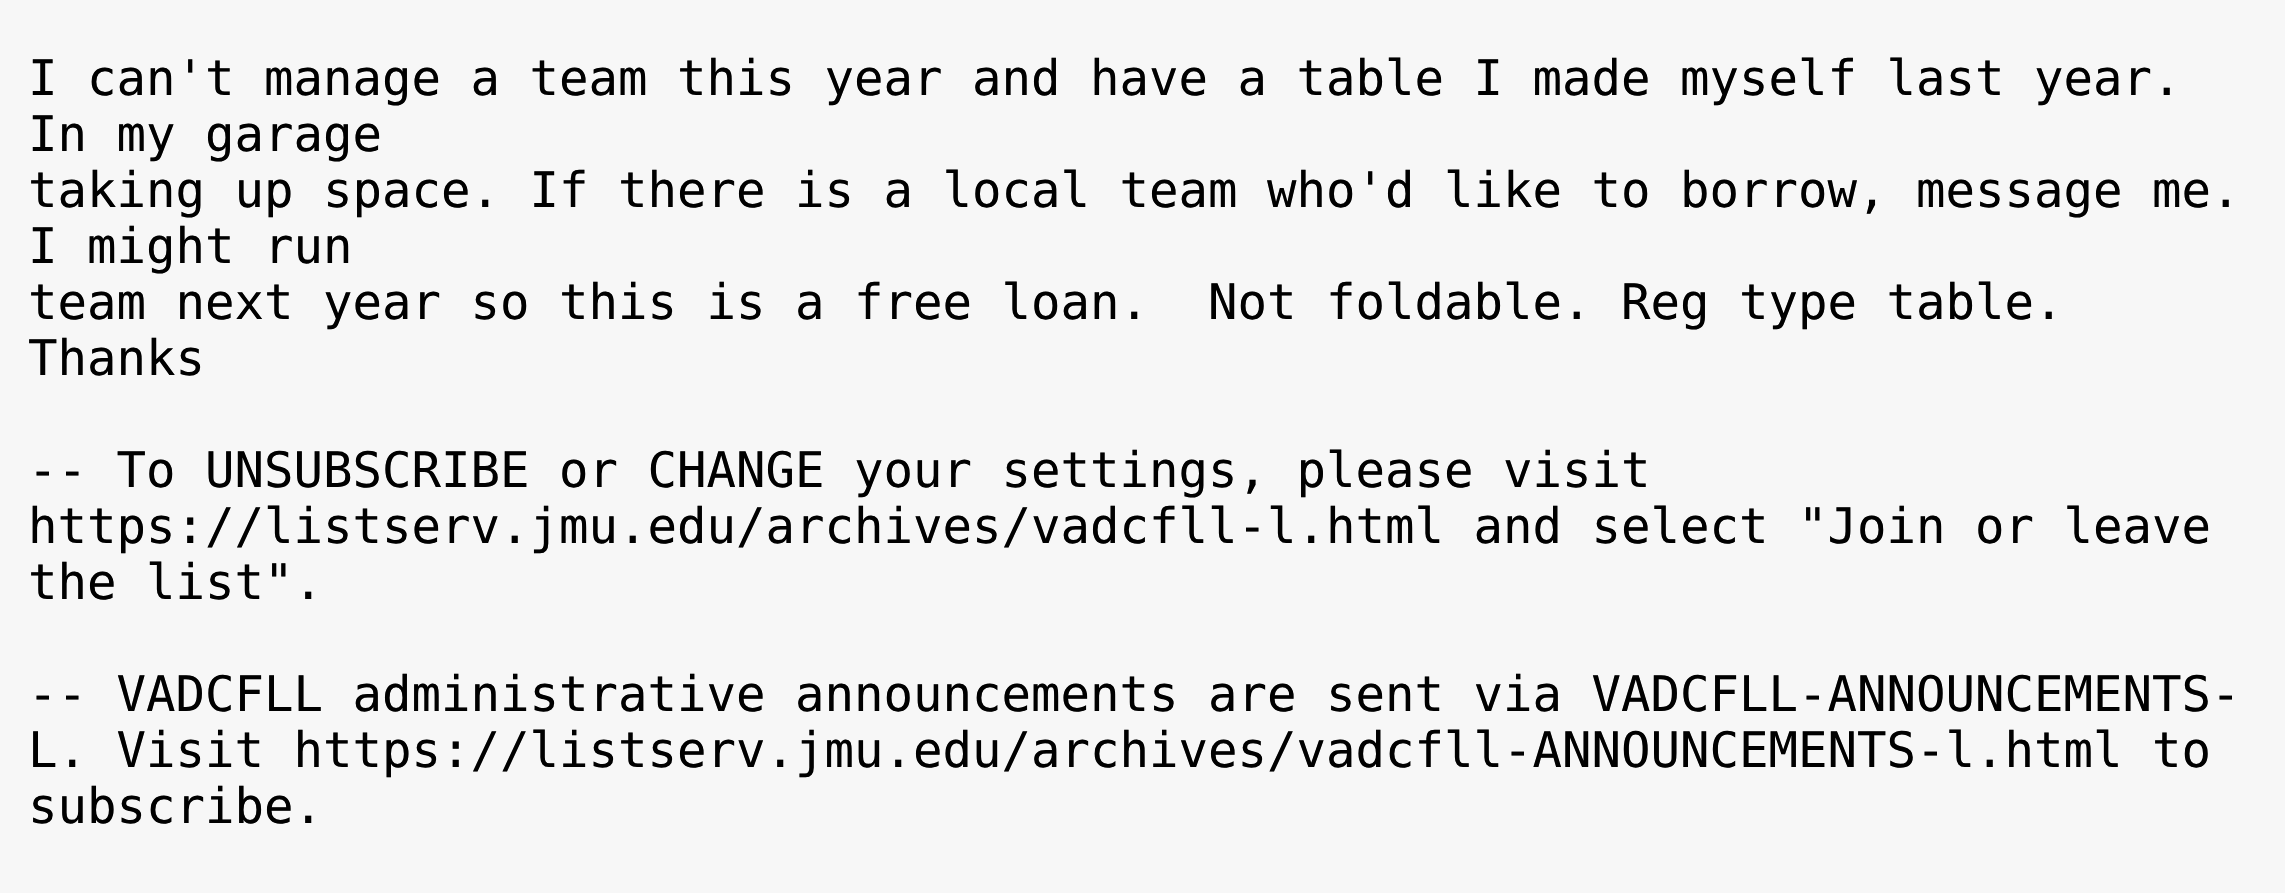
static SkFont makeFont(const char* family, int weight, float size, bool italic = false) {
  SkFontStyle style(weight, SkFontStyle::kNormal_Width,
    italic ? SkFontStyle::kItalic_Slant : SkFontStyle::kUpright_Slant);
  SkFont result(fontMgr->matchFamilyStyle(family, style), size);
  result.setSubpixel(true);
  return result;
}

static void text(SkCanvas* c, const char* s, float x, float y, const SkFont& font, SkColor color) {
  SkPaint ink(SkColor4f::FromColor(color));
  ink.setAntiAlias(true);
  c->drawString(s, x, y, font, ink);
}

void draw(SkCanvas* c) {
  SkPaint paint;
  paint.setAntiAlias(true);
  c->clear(0xfff7f7f7);
  SkFont face1 = makeFont("DejaVu Sans Mono", 400, 49);
  text(c, "I can't manage a team this year and have a table I made myself last year.", 28, 95, face1, 0xff000000);
  text(c, "In my garage", 28, 151, face1, 0xff000000);
  text(c, "taking up space. If there is a local team who'd like to borrow, message me.", 28, 207, face1, 0xff000000);
  text(c, "I might run", 28, 263, face1, 0xff000000);
  text(c, "team next year so this is a free loan.  Not foldable. Reg type table.", 28, 319, face1, 0xff000000);
  text(c, "Thanks", 28, 375, face1, 0xff000000);
  text(c, "-- To UNSUBSCRIBE or CHANGE your settings, please visit", 28, 487, face1, 0xff000000);
  text(c, "https://listserv.jmu.edu/archives/vadcfll-l.html and select \"Join or leave", 28, 543, face1, 0xff000000);
  text(c, "the list\".", 28, 599, face1, 0xff000000);
  text(c, "-- VADCFLL administrative announcements are sent via VADCFLL-ANNOUNCEMENTS-", 28, 711, face1, 0xff000000);
  text(c, "L. Visit https://listserv.jmu.edu/archives/vadcfll-ANNOUNCEMENTS-l.html to", 28, 767, face1, 0xff000000);
  text(c, "subscribe.", 28, 823, face1, 0xff000000);
}
